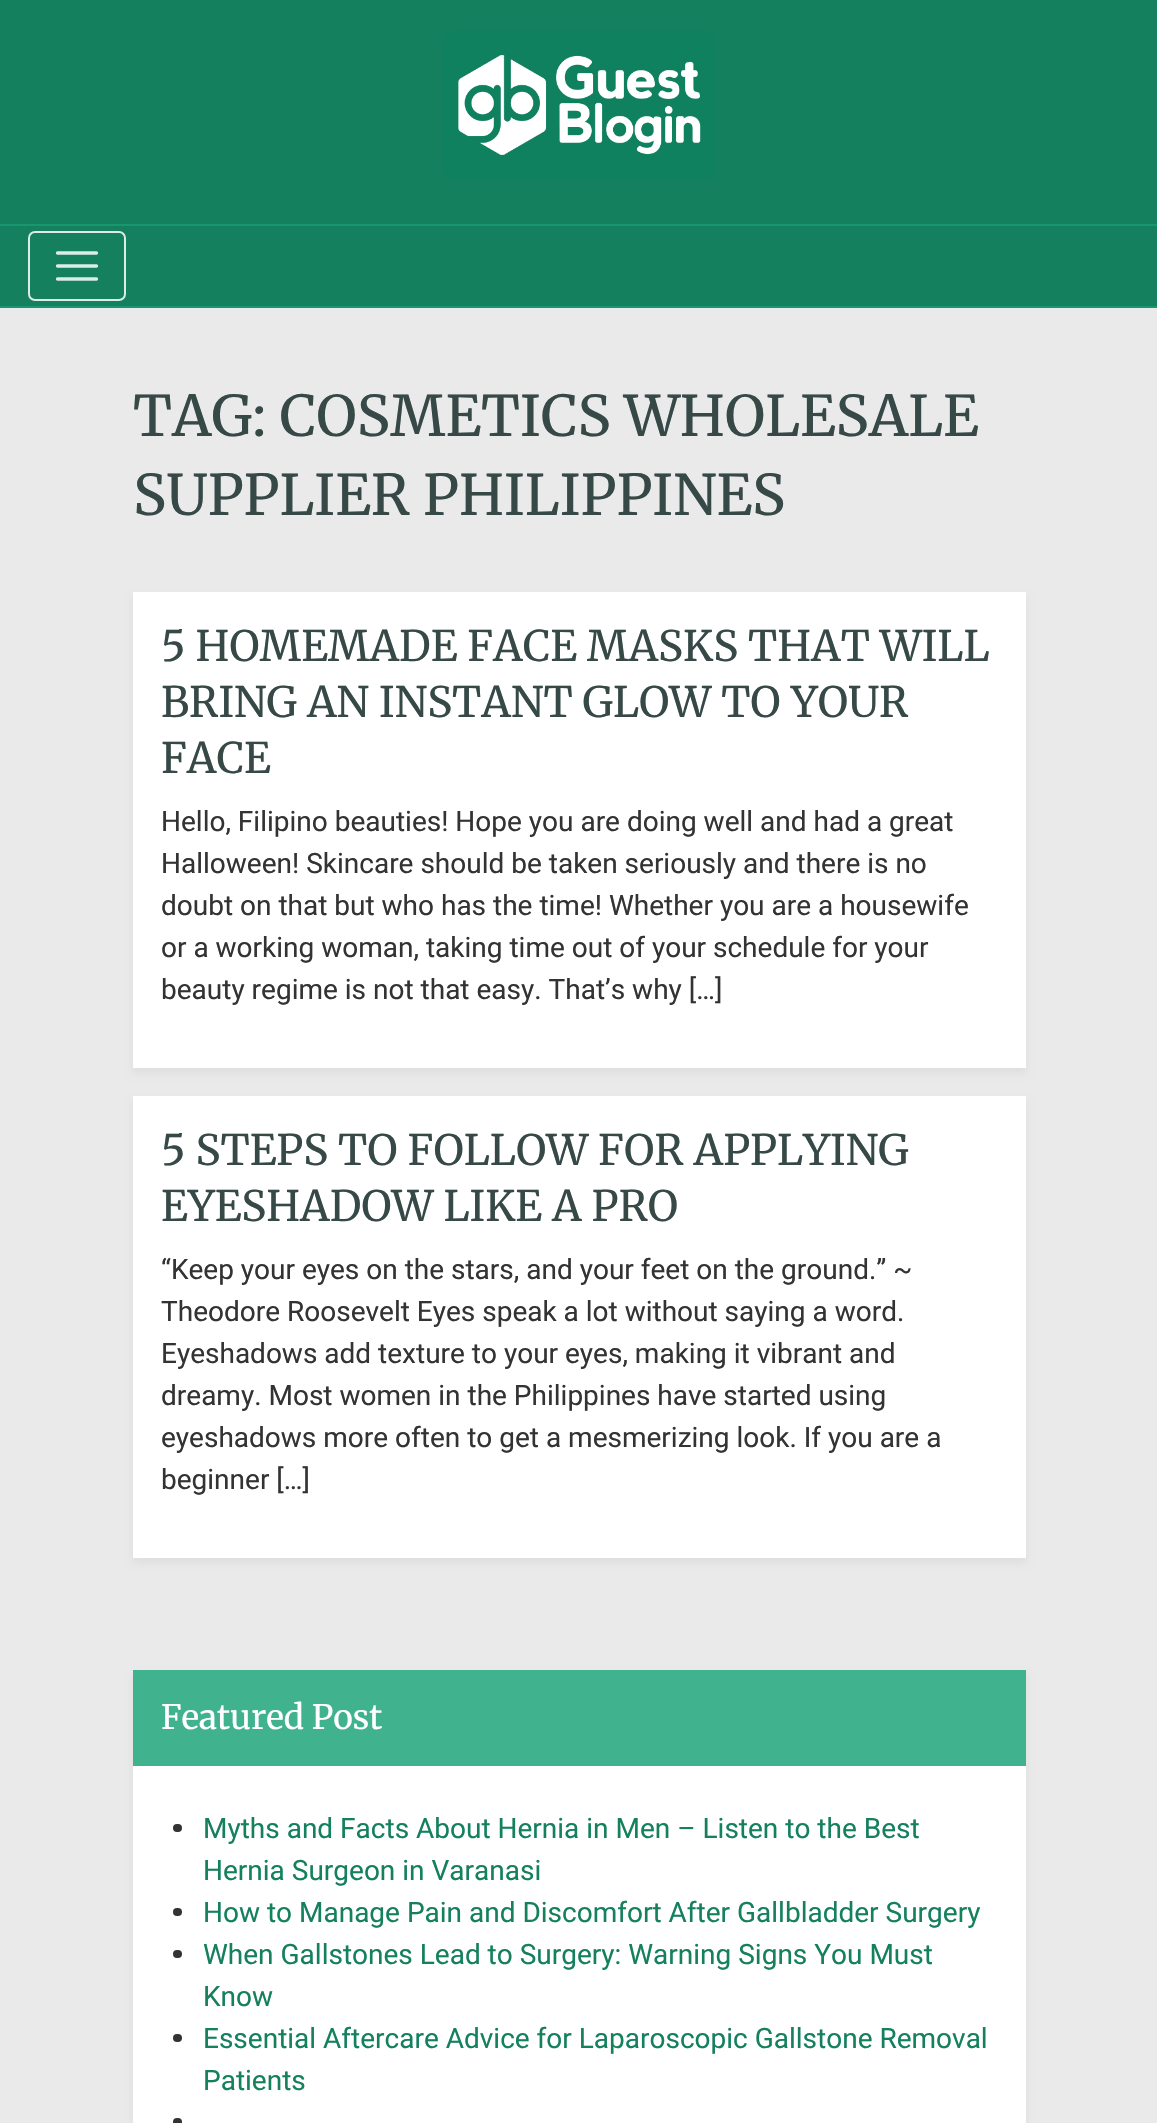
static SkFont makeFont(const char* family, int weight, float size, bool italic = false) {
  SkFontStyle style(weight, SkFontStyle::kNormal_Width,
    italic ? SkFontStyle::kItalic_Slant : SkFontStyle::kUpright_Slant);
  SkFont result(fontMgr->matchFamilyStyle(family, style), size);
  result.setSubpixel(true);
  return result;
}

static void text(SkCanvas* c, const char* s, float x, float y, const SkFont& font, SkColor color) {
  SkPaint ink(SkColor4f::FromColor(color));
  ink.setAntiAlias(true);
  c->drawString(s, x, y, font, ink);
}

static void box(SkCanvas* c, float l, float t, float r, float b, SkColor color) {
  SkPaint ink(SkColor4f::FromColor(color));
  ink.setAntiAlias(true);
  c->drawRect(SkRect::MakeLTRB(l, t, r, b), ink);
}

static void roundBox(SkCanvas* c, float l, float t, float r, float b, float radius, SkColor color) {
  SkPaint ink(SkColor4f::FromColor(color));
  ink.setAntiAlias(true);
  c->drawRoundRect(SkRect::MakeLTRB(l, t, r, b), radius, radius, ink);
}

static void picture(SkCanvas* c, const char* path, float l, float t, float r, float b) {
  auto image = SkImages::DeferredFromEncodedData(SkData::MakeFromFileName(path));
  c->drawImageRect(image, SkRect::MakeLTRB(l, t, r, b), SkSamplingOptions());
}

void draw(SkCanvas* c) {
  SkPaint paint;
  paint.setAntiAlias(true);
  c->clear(0xffeaeaea);
  box(c, 0, 0, 1157, 306, 0xff14805e);
  picture(c, "img_01.png", 442, 30, 716, 180);
  box(c, 0, 224, 1157, 226, 0xff189670);
  box(c, 0, 306, 1157, 308, 0xff189670);
  paint.setStyle(SkPaint::kStroke_Style);
  paint.setStrokeWidth(2);
  paint.setColor(0xffdcece7);
  c->drawRoundRect(SkRect::MakeLTRB(29, 232, 125, 300), 6, 6, paint);
  paint.setStrokeWidth(3.3f);
  paint.setStrokeCap(SkPaint::kRound_Cap);
  c->drawPath(SkPathBuilder().moveTo(57.5f, 253).lineTo(96.5f, 253).moveTo(57.5f, 266).lineTo(96.5f, 266).moveTo(57.5f, 279).lineTo(96.5f, 279).detach(), paint);
  SkFont face1 = makeFont("Merriweather", 300, 56);
  text(c, "TAG: COSMETICS WHOLESALE", 133, 436, face1, 0xff364947);
  text(c, "SUPPLIER PHILIPPINES", 133, 515, face1, 0xff364947);
  paint.setStyle(SkPaint::kFill_Style);
  paint.setColor(0x0d000000);
  paint.setMaskFilter(SkMaskFilter::MakeBlur(kNormal_SkBlurStyle, 3.5f));
  c->drawRect(SkRect::MakeLTRB(133, 597, 1026, 1073), paint);
  paint.setMaskFilter(nullptr);
  box(c, 133, 592, 1026, 1068, 0xffffffff);
  SkFont face2 = makeFont("Merriweather", 300, 42);
  text(c, "5 HOMEMADE FACE MASKS THAT WILL", 161, 661, face2, 0xff364947);
  text(c, "BRING AN INSTANT GLOW TO YOUR", 161, 717, face2, 0xff364947);
  text(c, "FACE", 161, 773, face2, 0xff364947);
  SkFont face3 = makeFont("Roboto", 400, 28);
  text(c, "Hello, Filipino beauties! Hope you are doing well and had a great", 161, 831, face3, 0xff333333);
  text(c, "Halloween! Skincare should be taken seriously and there is no", 161, 873, face3, 0xff333333);
  text(c, "doubt on that but who has the time! Whether you are a housewife", 161, 915, face3, 0xff333333);
  text(c, "or a working woman, taking time out of your schedule for your", 161, 957, face3, 0xff333333);
  text(c, "beauty regime is not that easy. That’s why […]", 161, 999, face3, 0xff333333);
  paint.setMaskFilter(SkMaskFilter::MakeBlur(kNormal_SkBlurStyle, 3.5f));
  c->drawRect(SkRect::MakeLTRB(133, 1101, 1026, 1563), paint);
  paint.setMaskFilter(nullptr);
  box(c, 133, 1096, 1026, 1558, 0xffffffff);
  text(c, "5 STEPS TO FOLLOW FOR APPLYING", 161, 1165, face2, 0xff364947);
  text(c, "EYESHADOW LIKE A PRO", 161, 1221, face2, 0xff364947);
  text(c, "“Keep your eyes on the stars, and your feet on the ground.” ~", 161, 1279, face3, 0xff333333);
  text(c, "Theodore Roosevelt Eyes speak a lot without saying a word.", 161, 1321, face3, 0xff333333);
  text(c, "Eyeshadows add texture to your eyes, making it vibrant and", 161, 1363, face3, 0xff333333);
  text(c, "dreamy. Most women in the Philippines have started using", 161, 1405, face3, 0xff333333);
  text(c, "eyeshadows more often to get a mesmerizing look. If you are a", 161, 1447, face3, 0xff333333);
  text(c, "beginner […]", 161, 1489, face3, 0xff333333);
  paint.setMaskFilter(SkMaskFilter::MakeBlur(kNormal_SkBlurStyle, 3.5f));
  c->drawRect(SkRect::MakeLTRB(133, 1675, 1026, 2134), paint);
  paint.setMaskFilter(nullptr);
  box(c, 133, 1766, 1026, 2123, 0xffffffff);
  box(c, 133, 1670, 1026, 1766, 0xff40b38e);
  SkFont face4 = makeFont("Merriweather", 300, 33.5f);
  text(c, "Featured Post", 161, 1729, face4, 0xffffffff);
  roundBox(c, 173, 1824, 182, 1832, 4, 0xff333333);
  text(c, "Myths and Facts About Hernia in Men – Listen to the Best", 203, 1838, face3, 0xff14805e);
  text(c, "Hernia Surgeon in Varanasi", 203, 1880, face3, 0xff14805e);
  roundBox(c, 173, 1908, 182, 1916, 4, 0xff333333);
  text(c, "How to Manage Pain and Discomfort After Gallbladder Surgery", 203, 1922, face3, 0xff14805e);
  roundBox(c, 173, 1950, 182, 1958, 4, 0xff333333);
  text(c, "When Gallstones Lead to Surgery: Warning Signs You Must", 203, 1964, face3, 0xff14805e);
  text(c, "Know", 203, 2006, face3, 0xff14805e);
  roundBox(c, 173, 2034, 182, 2042, 4, 0xff333333);
  text(c, "Essential Aftercare Advice for Laparoscopic Gallstone Removal", 203, 2048, face3, 0xff14805e);
  text(c, "Patients", 203, 2090, face3, 0xff14805e);
  roundBox(c, 173, 2118, 182, 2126, 4, 0xff333333);
}
